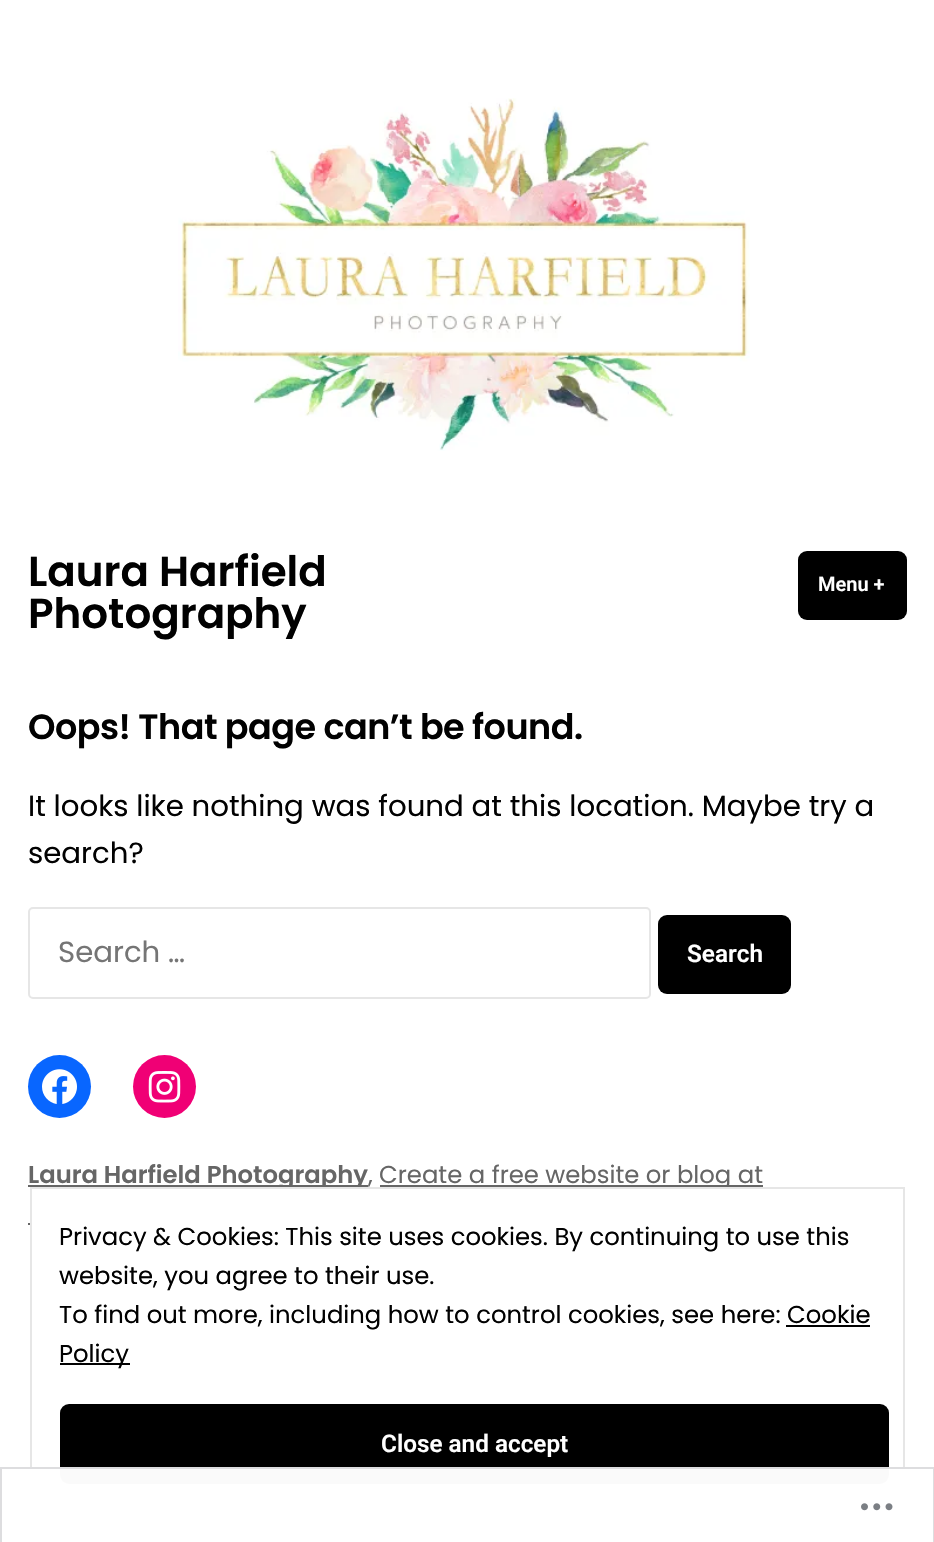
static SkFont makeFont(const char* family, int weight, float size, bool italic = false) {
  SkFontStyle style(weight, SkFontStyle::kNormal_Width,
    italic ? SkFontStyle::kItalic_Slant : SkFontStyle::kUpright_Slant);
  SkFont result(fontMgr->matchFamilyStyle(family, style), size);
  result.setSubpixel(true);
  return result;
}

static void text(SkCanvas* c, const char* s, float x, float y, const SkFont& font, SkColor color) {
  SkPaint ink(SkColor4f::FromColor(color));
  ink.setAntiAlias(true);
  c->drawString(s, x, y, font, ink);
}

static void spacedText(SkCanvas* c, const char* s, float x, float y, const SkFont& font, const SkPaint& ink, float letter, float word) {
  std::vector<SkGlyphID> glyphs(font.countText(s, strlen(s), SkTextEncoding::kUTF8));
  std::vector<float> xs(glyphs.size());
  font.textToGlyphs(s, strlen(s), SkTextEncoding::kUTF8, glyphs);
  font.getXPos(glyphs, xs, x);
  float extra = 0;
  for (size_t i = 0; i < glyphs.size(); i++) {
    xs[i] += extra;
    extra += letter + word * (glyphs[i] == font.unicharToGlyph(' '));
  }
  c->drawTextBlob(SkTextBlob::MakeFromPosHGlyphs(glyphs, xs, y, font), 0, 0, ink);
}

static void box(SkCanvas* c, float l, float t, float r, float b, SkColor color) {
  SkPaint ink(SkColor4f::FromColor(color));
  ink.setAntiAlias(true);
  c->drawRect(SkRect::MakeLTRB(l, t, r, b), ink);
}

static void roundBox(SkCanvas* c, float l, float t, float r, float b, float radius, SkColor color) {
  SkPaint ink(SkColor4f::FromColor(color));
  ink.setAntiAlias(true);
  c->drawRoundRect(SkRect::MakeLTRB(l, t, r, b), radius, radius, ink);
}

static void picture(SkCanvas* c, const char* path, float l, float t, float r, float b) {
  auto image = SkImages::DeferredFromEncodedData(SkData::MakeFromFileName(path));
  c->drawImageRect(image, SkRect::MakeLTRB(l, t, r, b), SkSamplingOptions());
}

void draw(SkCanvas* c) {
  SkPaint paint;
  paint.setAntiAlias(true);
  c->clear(0xffffffff);
  picture(c, "img_01.png", 178, 98, 750, 451);
  SkFont face1 = makeFont("Poppins", 600, 42);
  text(c, "Laura Harfield", 28, 586, face1, 0xff010101);
  text(c, "Photography", 28, 628, face1, 0xff010101);
  roundBox(c, 798, 551, 907, 620, 9, 0xff000000);
  SkFont face2 = makeFont("Roboto", 600, 20);
  text(c, "Menu +", 818, 591, face2, 0xffffffff);
  SkFont face3 = makeFont("Poppins", 600, 35);
  paint.setColor(0xff010101);
  spacedText(c, "Oops! That page can’t be found.", 28, 739, face3, paint, -0.5f, 0);
  SkFont face4 = makeFont("Poppins", 400, 29.2f);
  text(c, "It looks like nothing was found at this location. Maybe try a", 28, 816, face4, 0xff010101);
  text(c, "search?", 28, 863, face4, 0xff010101);
  paint.setStyle(SkPaint::kStroke_Style);
  paint.setStrokeWidth(2);
  paint.setColor(0xffe6e6e6);
  c->drawRoundRect(SkRect::MakeLTRB(29, 908, 650, 998), 4, 4, paint);
  text(c, "Search …", 58, 962, face4, 0xff757575);
  roundBox(c, 658, 915, 791, 994, 9, 0xff000000);
  SkFont face5 = makeFont("Roboto", 600, 24.3f);
  text(c, "Search", 687, 962, face5, 0xffffffff);
  paint.setStyle(SkPaint::kFill_Style);
  paint.setColor(0xff0866ff);
  c->drawCircle(59.5f, 1086.5f, 31.5f, paint);
  picture(c, "img_02.png", 42, 1069, 77, 1104);
  paint.setColor(0xfff00075);
  c->drawCircle(164.5f, 1086.5f, 31.5f, paint);
  picture(c, "img_03.png", 148, 1071, 181, 1103);
  box(c, 28, 1185, 368, 1187, 0xff666666);
  SkFont face6 = makeFont("Poppins", 600, 24.3f);
  text(c, "Laura Harfield Photography", 28, 1183, face6, 0xff666666);
  SkFont face7 = makeFont("Poppins", 400, 24.3f);
  text(c, ",", 368, 1183, face7, 0xff666666);
  box(c, 380, 1185, 763, 1187, 0xff666666);
  text(c, "Create a free website or blog at", 379, 1183, face7, 0xff666666);
  box(c, 28, 1223, 30, 1225, 0xff666666);
  box(c, 283, 1189, 726, 1190, 0xffffffff);
  paint.setStyle(SkPaint::kStroke_Style);
  paint.setColor(0xffe6e6e6);
  c->drawRect(SkRect::MakeLTRB(31, 1188, 904, 1513), paint);
  text(c, "Privacy & Cookies: This site uses cookies. By continuing to use this", 59, 1245, face7, 0xff010101);
  text(c, "website, you agree to their use.", 59, 1284, face7, 0xff010101);
  text(c, "To find out more, including how to control cookies, see here: Cookie", 59, 1323, face7, 0xff010101);
  box(c, 60, 1363, 130, 1365, 0xff010101);
  text(c, "Policy", 59, 1362, face7, 0xff010101);
  box(c, 786, 1325, 870, 1327, 0xff010101);
  roundBox(c, 60, 1404, 889, 1484, 9, 0xff000000);
  text(c, "Close and accept", 381, 1452, face5, 0xffffffff);
  box(c, 30, 1467, 905, 1514, 0xfaffffff);
  paint.setColor(0xfadcdcde);
  c->drawRect(SkRect::MakeLTRB(1, 1468, 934, 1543), paint);
  picture(c, "img_04.png", 861, 1503, 893, 1511);
}
